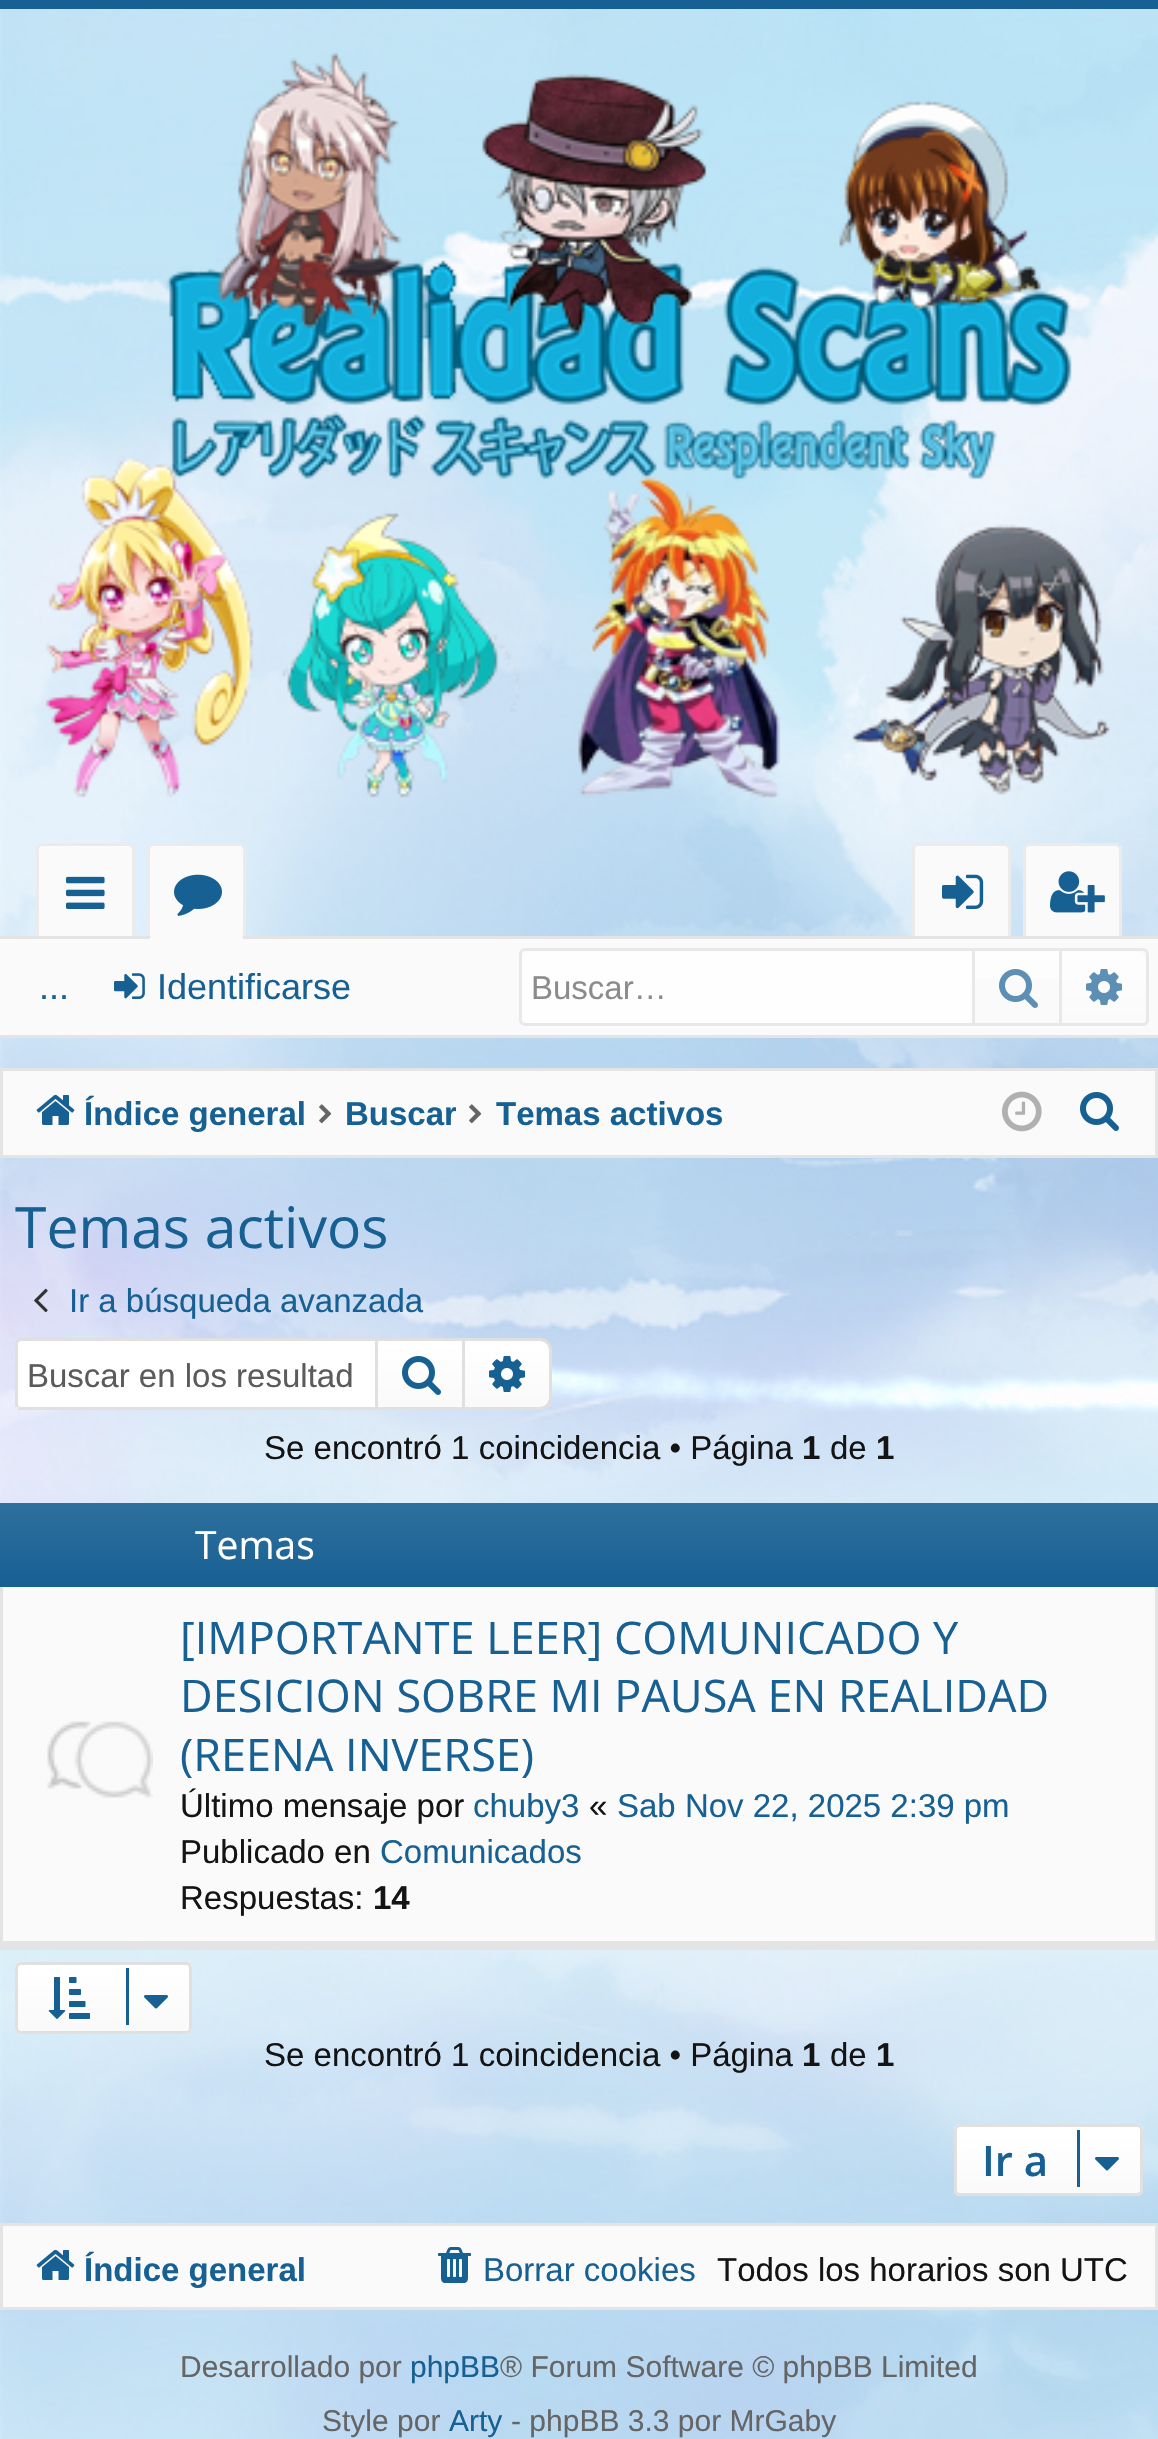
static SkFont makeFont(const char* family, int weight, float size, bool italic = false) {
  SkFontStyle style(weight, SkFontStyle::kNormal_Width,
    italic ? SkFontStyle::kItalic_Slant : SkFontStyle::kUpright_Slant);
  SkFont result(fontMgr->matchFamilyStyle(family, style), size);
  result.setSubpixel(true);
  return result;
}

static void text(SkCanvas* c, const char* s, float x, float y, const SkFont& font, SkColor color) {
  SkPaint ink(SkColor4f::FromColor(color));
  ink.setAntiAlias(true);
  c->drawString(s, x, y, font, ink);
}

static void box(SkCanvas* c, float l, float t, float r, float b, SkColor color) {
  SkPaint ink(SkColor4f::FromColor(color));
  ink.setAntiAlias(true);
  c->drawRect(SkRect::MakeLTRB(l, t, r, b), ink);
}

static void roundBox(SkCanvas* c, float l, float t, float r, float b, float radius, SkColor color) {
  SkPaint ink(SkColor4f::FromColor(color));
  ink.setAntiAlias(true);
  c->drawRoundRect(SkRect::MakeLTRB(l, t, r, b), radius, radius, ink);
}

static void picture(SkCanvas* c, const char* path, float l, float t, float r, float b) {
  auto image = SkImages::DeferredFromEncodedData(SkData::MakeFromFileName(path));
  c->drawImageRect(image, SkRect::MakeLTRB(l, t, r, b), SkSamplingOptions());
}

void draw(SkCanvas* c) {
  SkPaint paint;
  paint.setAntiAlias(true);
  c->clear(0xffffffff);
  picture(c, "img_01.png", 0, 9, 1158, 2439);
  box(c, 0, 0, 1158, 9, 0xff176093);
  picture(c, "img_02.png", 45, 52, 1110, 798);
  paint.setColor(0xfffafafa);
  c->drawPath(SkPathBuilder().moveTo(42, 846).lineTo(129, 846).cubicTo(130.5f, 846, 132, 847.5f, 132, 849).lineTo(132, 939).lineTo(39, 939).lineTo(39, 849).cubicTo(39, 847.5f, 40.5f, 846, 42, 846).close().detach(), paint);
  box(c, 39, 843, 132, 846, 0xffebebeb);
  box(c, 132, 846, 135, 939, 0xffebebeb);
  box(c, 36, 846, 39, 939, 0xffebebeb);
  picture(c, "img_03.png", 66, 876, 105, 909);
  c->drawPath(SkPathBuilder().moveTo(153, 846).lineTo(240, 846).cubicTo(241.5f, 846, 243, 847.5f, 243, 849).lineTo(243, 939).lineTo(150, 939).lineTo(150, 849).cubicTo(150, 847.5f, 151.5f, 846, 153, 846).close().detach(), paint);
  box(c, 150, 843, 243, 846, 0xffebebeb);
  box(c, 243, 846, 246, 939, 0xffebebeb);
  box(c, 147, 846, 150, 939, 0xffebebeb);
  picture(c, "img_04.png", 174, 874, 222, 916);
  box(c, 0, 939, 1158, 1035, 0xfffafafa);
  c->drawPath(SkPathBuilder().moveTo(918, 846).lineTo(1005, 846).cubicTo(1006.5f, 846, 1008, 847.5f, 1008, 849).lineTo(1008, 939).lineTo(915, 939).lineTo(915, 849).cubicTo(915, 847.5f, 916.5f, 846, 918, 846).close().detach(), paint);
  box(c, 1008, 846, 1011, 939, 0xffebebeb);
  box(c, 912, 846, 915, 939, 0xffebebeb);
  c->drawPath(SkPathBuilder().moveTo(1029, 846).lineTo(1116, 846).cubicTo(1117.5f, 846, 1119, 847.5f, 1119, 849).lineTo(1119, 939).lineTo(1026, 939).lineTo(1026, 849).cubicTo(1026, 847.5f, 1027.5f, 846, 1029, 846).close().detach(), paint);
  box(c, 1119, 846, 1122, 939, 0xffebebeb);
  box(c, 1023, 846, 1026, 939, 0xffebebeb);
  box(c, 0, 936, 1158, 939, 0xffe4e4e4);
  c->drawPath(SkPathBuilder().moveTo(156, 933).lineTo(237, 933).cubicTo(240.5f, 933, 243, 935.5f, 243, 939).lineTo(243, 945).lineTo(150, 945).lineTo(150, 939).cubicTo(150, 935.5f, 152.5f, 933, 156, 933).close().detach(), paint);
  box(c, 915, 843, 1008, 846, 0xffebebeb);
  picture(c, "img_05.png", 942, 874, 984, 909);
  box(c, 1026, 843, 1119, 846, 0xffebebeb);
  picture(c, "img_06.png", 1050, 871, 1105, 913);
  box(c, 0, 1035, 1158, 1038, 0xffe4e4e4);
  SkFont face1 = makeFont("Liberation Sans", 400, 36);
  text(c, "...", 39, 999, face1, 0xff176093);
  picture(c, "img_07.png", 114, 973, 145, 999);
  text(c, "Identificarse", 157, 999, face1, 0xff176093);
  paint.setStyle(SkPaint::kStroke_Style);
  paint.setStrokeWidth(3);
  paint.setColor(0xffe8e8e8);
  c->drawRoundRect(SkRect::MakeLTRB(520.5f, 949.5f, 1147.5f, 1024.5f), 4.5f, 4.5f, paint);
  paint.setStyle(SkPaint::kFill_Style);
  paint.setColor(0xfffefefe);
  c->drawPath(SkPathBuilder().moveTo(528, 951).lineTo(972, 951).lineTo(972, 1023).lineTo(528, 1023).cubicTo(524.5f, 1023, 522, 1020.5f, 522, 1017).lineTo(522, 957).cubicTo(522, 953.5f, 524.5f, 951, 528, 951).close().detach(), paint);
  SkFont face2 = makeFont("Liberation Sans", 400, 33);
  text(c, "Buscar…", 531, 999, face2, 0xff8b8b8b);
  {
    const SkColor colors[] = {0xfffefefe, 0xfffafafa};
    const float stops[] = {0, 1};
    const SkPoint ends[] = {{1017, 951}, {1017, 1023}};
    paint.setShader(SkGradientShader::MakeLinear(ends, colors, stops, 2, SkTileMode::kClamp));
    paint.setAlpha(255);
  }
  c->drawRect(SkRect::MakeLTRB(975, 951, 1059, 978), paint);
  box(c, 1059, 951, 1062, 1023, 0xffe8e8e8);
  box(c, 972, 951, 975, 1023, 0xffe8e8e8);
  picture(c, "img_08.png", 999, 969, 1038, 1008);
  {
    const SkColor colors[] = {0xfffefefe, 0xfffafafa};
    const float stops[] = {0, 1};
    const SkPoint ends[] = {{1104, 951}, {1104, 1023}};
    paint.setShader(SkGradientShader::MakeLinear(ends, colors, stops, 2, SkTileMode::kClamp));
    paint.setAlpha(255);
  }
  c->drawPath(SkPathBuilder().moveTo(1062, 951).lineTo(1134, 951).cubicTo(1140.5f, 951, 1146, 956.5f, 1146, 963).lineTo(1146, 1011).cubicTo(1146, 1017.5f, 1140.5f, 1023, 1134, 1023).lineTo(1062, 1023).close().detach(), paint);
  picture(c, "img_09.png", 1086, 969, 1122, 1005);
  paint.setShader(nullptr);
  paint.setColor(0xfffafafa);
  c->drawRect(SkRect::MakeLTRB(1.5f, 1069.5f, 1156.5f, 1156.5f), paint);
  paint.setStyle(SkPaint::kStroke_Style);
  paint.setColor(0xffe4e4e4);
  c->drawRect(SkRect::MakeLTRB(1.5f, 1069.5f, 1156.5f, 1156.5f), paint);
  picture(c, "img_10.png", 36, 1094, 75, 1125);
  SkFont face3 = makeFont("Liberation Sans", 700, 33);
  text(c, "Índice general", 84, 1125, face3, 0xff176093);
  picture(c, "img_11.png", 319, 1104, 332, 1124);
  c->save();
  c->clipRect(SkRect::MakeLTRB(345, 1080, 456, 1146));
  text(c, "Buscar", 345, 1125, face3, 0xff176093);
  c->restore();
  picture(c, "img_11.png", 469, 1104, 482, 1124);
  text(c, "Temas activos", 496, 1125, face3, 0xff176093);
  picture(c, "img_12.png", 1002, 1091, 1042, 1132);
  picture(c, "img_13.png", 1080, 1092, 1119, 1131);
  SkFont face4 = makeFont("Open Sans", 400, 57);
  text(c, "Temas activos", 15, 1248, face4, 0xff176093);
  picture(c, "img_14.png", 34, 1288, 48, 1313);
  text(c, "Ir a búsqueda avanzada", 69, 1312, face2, 0xff176093);
  paint.setStyle(SkPaint::kFill_Style);
  paint.setColor(0xffffffff);
  c->drawPath(SkPathBuilder().moveTo(21, 1341).lineTo(375, 1341).lineTo(375, 1407).lineTo(21, 1407).cubicTo(19.5f, 1407, 18, 1405.5f, 18, 1404).lineTo(18, 1344).cubicTo(18, 1342.5f, 19.5f, 1341, 21, 1341).close().detach(), paint);
  box(c, 18, 1338, 375, 1341, 0xffe0e0e0);
  box(c, 18, 1407, 375, 1410, 0xffe0e0e0);
  box(c, 15, 1341, 18, 1407, 0xffe0e0e0);
  text(c, "Buscar en los resultad", 27, 1387, face2, 0xff5b5b5b);
  {
    const SkColor colors[] = {0xffffffff, 0xfffafafa};
    const float stops[] = {0, 1};
    const SkPoint ends[] = {{420, 1341}, {420, 1407}};
    paint.setShader(SkGradientShader::MakeLinear(ends, colors, stops, 2, SkTileMode::kClamp));
    paint.setAlpha(255);
  }
  c->drawRect(SkRect::MakeLTRB(378, 1341, 462, 1407), paint);
  paint.setStyle(SkPaint::kStroke_Style);
  paint.setShader(nullptr);
  paint.setColor(0xffe0e0e0);
  c->drawRect(SkRect::MakeLTRB(376.5f, 1339.5f, 463.5f, 1408.5f), paint);
  picture(c, "img_15.png", 402, 1356, 441, 1395);
  paint.setStyle(SkPaint::kFill_Style);
  paint.setColor(0xfffafafa);
  c->drawPath(SkPathBuilder().moveTo(465, 1341).lineTo(540, 1341).cubicTo(545, 1341, 549, 1345, 549, 1350).lineTo(549, 1398).cubicTo(549, 1403, 545, 1407, 540, 1407).lineTo(465, 1407).close().detach(), paint);
  {
    const SkColor colors[] = {0xffffffff, 0x00ffffff};
    const float stops[] = {0, 1};
    const SkPoint ends[] = {{507, 1341}, {507, 1407}};
    paint.setShader(SkGradientShader::MakeLinear(ends, colors, stops, 2, SkTileMode::kClamp));
    paint.setAlpha(255);
  }
  c->drawPath(SkPathBuilder().moveTo(465, 1341).lineTo(540, 1341).cubicTo(545, 1341, 549, 1345, 549, 1350).lineTo(549, 1398).cubicTo(549, 1403, 545, 1407, 540, 1407).lineTo(465, 1407).close().detach(), paint);
  paint.setShader(nullptr);
  paint.setColor(0xffe0e0e0);
  c->drawPath(SkPathBuilder(SkPathFillType::kEvenOdd).moveTo(465, 1338).lineTo(540, 1338).cubicTo(547, 1338, 552, 1343, 552, 1350).lineTo(552, 1398).cubicTo(552, 1405, 547, 1410, 540, 1410).lineTo(465, 1410).close().moveTo(465, 1341).lineTo(540, 1341).cubicTo(545, 1341, 549, 1345, 549, 1350).lineTo(549, 1398).cubicTo(549, 1403, 545, 1407, 540, 1407).lineTo(465, 1407).close().detach(), paint);
  picture(c, "img_16.png", 489, 1356, 525, 1392);
  text(c, "Se encontró 1 coincidencia • Página", 264, 1459, face2, 0xff141414);
  text(c, "1", 802, 1459, face3, 0xff141414);
  text(c, "de", 830, 1459, face2, 0xff141414);
  text(c, "1", 876, 1459, face3, 0xff141414);
  box(c, 3, 1587, 1155, 1941, 0xfffafafa);
  box(c, 1155, 1587, 1158, 1941, 0xffe4e4e4);
  box(c, 3, 1941, 1158, 1950, 0xffe4e4e4);
  box(c, 0, 1587, 3, 1950, 0xffe4e4e4);
  {
    const SkColor colors[] = {0xff2e709e, 0xff176093};
    const float stops[] = {0, 1};
    const SkPoint ends[] = {{579, 1503}, {579, 1587}};
    paint.setShader(SkGradientShader::MakeLinear(ends, colors, stops, 2, SkTileMode::kClamp));
    paint.setAlpha(255);
  }
  c->drawRect(SkRect::MakeLTRB(0, 1503, 1158, 1587), paint);
  SkFont face5 = makeFont("Open Sans", 400, 39);
  text(c, "Temas", 195, 1559, face5, 0xffffffff);
  picture(c, "img_17.png", 47, 1721, 153, 1798);
  SkFont face6 = makeFont("Open Sans", 400, 45);
  text(c, "[IMPORTANTE LEER] COMUNICADO Y", 180, 1654, face6, 0xff176093);
  text(c, "DESICION SOBRE MI PAUSA EN REALIDAD", 180, 1712, face6, 0xff176093);
  text(c, "(REENA INVERSE)", 180, 1771, face6, 0xff176093);
  text(c, "Último mensaje por", 180, 1817, face2, 0xff141414);
  text(c, "chuby3", 473, 1817, face2, 0xff176093);
  text(c, "«", 589, 1817, face2, 0xff141414);
  text(c, "Sab Nov 22, 2025 2:39 pm", 617, 1817, face2, 0xff176093);
  text(c, "Publicado en", 180, 1863, face2, 0xff141414);
  text(c, "Comunicados", 380, 1863, face2, 0xff176093);
  text(c, "Respuestas:", 180, 1909, face2, 0xff141414);
  text(c, "14", 373, 1909, face3, 0xff141414);
  roundBox(c, 15, 1962, 192, 2034, 6, 0xfffafafa);
  c->save();
  c->clipPath(SkPathBuilder().moveTo(21, 1962).lineTo(186, 1962).cubicTo(189.5f, 1962, 192, 1964.5f, 192, 1968).lineTo(192, 2028).cubicTo(192, 2031.5f, 189.5f, 2034, 186, 2034).lineTo(21, 2034).cubicTo(17.5f, 2034, 15, 2031.5f, 15, 2028).lineTo(15, 1968).cubicTo(15, 1964.5f, 17.5f, 1962, 21, 1962).close().detach(), true);
  {
    const SkColor colors[] = {0xffffffff, 0x00ffffff};
    const float stops[] = {0, 1};
    const SkPoint ends[] = {{104, 1965}, {104, 2031}};
    paint.setShader(SkGradientShader::MakeLinear(ends, colors, stops, 2, SkTileMode::kClamp));
    paint.setAlpha(255);
  }
  c->drawRect(SkRect::MakeLTRB(15, 1965, 192, 2030), paint);
  c->restore();
  paint.setStyle(SkPaint::kStroke_Style);
  paint.setShader(nullptr);
  paint.setColor(0xffe0e0e0);
  c->drawRoundRect(SkRect::MakeLTRB(16.5f, 1963.5f, 190.5f, 2032.5f), 4.5f, 4.5f, paint);
  picture(c, "img_18.png", 48, 1977, 90, 2019);
  box(c, 126, 1968, 129, 2025, 0xff176093);
  picture(c, "img_19.png", 144, 1995, 168, 2009);
  text(c, "Se encontró 1 coincidencia • Página", 264, 2066, face2, 0xff141414);
  text(c, "1", 802, 2066, face3, 0xff141414);
  text(c, "de", 830, 2066, face2, 0xff141414);
  text(c, "1", 876, 2066, face3, 0xff141414);
  roundBox(c, 954, 2124, 1143, 2196, 6, 0xfffafafa);
  c->save();
  c->clipPath(SkPathBuilder().moveTo(960, 2124).lineTo(1137, 2124).cubicTo(1140.5f, 2124, 1143, 2126.5f, 1143, 2130).lineTo(1143, 2190).cubicTo(1143, 2193.5f, 1140.5f, 2196, 1137, 2196).lineTo(960, 2196).cubicTo(956.5f, 2196, 954, 2193.5f, 954, 2190).lineTo(954, 2130).cubicTo(954, 2126.5f, 956.5f, 2124, 960, 2124).close().detach(), true);
  paint.setStyle(SkPaint::kFill_Style);
  {
    const SkColor colors[] = {0xffffffff, 0x00ffffff};
    const float stops[] = {0, 1};
    const SkPoint ends[] = {{1049, 2127}, {1049, 2193}};
    paint.setShader(SkGradientShader::MakeLinear(ends, colors, stops, 2, SkTileMode::kClamp));
    paint.setAlpha(255);
  }
  c->drawRect(SkRect::MakeLTRB(954, 2127, 1143, 2192), paint);
  c->restore();
  paint.setStyle(SkPaint::kStroke_Style);
  paint.setShader(nullptr);
  paint.setColor(0xffe0e0e0);
  c->drawRoundRect(SkRect::MakeLTRB(955.5f, 2125.5f, 1141.5f, 2194.5f), 4.5f, 4.5f, paint);
  SkFont face7 = makeFont("Open Sans", 600, 42);
  text(c, "Ir a", 982, 2176, face7, 0xff176093);
  box(c, 1077, 2130, 1080, 2187, 0xff176093);
  picture(c, "img_19.png", 1095, 2157, 1119, 2171);
  paint.setStyle(SkPaint::kFill_Style);
  paint.setColor(0xfffafafa);
  c->drawRect(SkRect::MakeLTRB(1.5f, 2224.5f, 1156.5f, 2308.5f), paint);
  paint.setStyle(SkPaint::kStroke_Style);
  paint.setColor(0xffe4e4e4);
  c->drawRect(SkRect::MakeLTRB(1.5f, 2224.5f, 1156.5f, 2308.5f), paint);
  picture(c, "img_10.png", 36, 2249, 75, 2280);
  text(c, "Índice general", 84, 2281, face3, 0xff176093);
  picture(c, "img_20.png", 438, 2247, 471, 2283);
  text(c, "Borrar cookies", 483, 2281, face2, 0xff176093);
  text(c, "Todos los horarios son UTC", 717, 2281, face2, 0xff141414);
  SkFont face8 = makeFont("Liberation Sans", 400, 30);
  text(c, "Desarrollado por", 180, 2377, face8, 0xff656565);
  text(c, "phpBB", 410, 2377, face8, 0xff176093);
  text(c, "® Forum Software © phpBB Limited", 500, 2377, face8, 0xff656565);
  text(c, "Style por", 322, 2431, face8, 0xff656565);
  text(c, "Arty", 449, 2431, face8, 0xff176093);
  text(c, "- phpBB 3.3 por MrGaby", 511, 2431, face8, 0xff656565);
}
